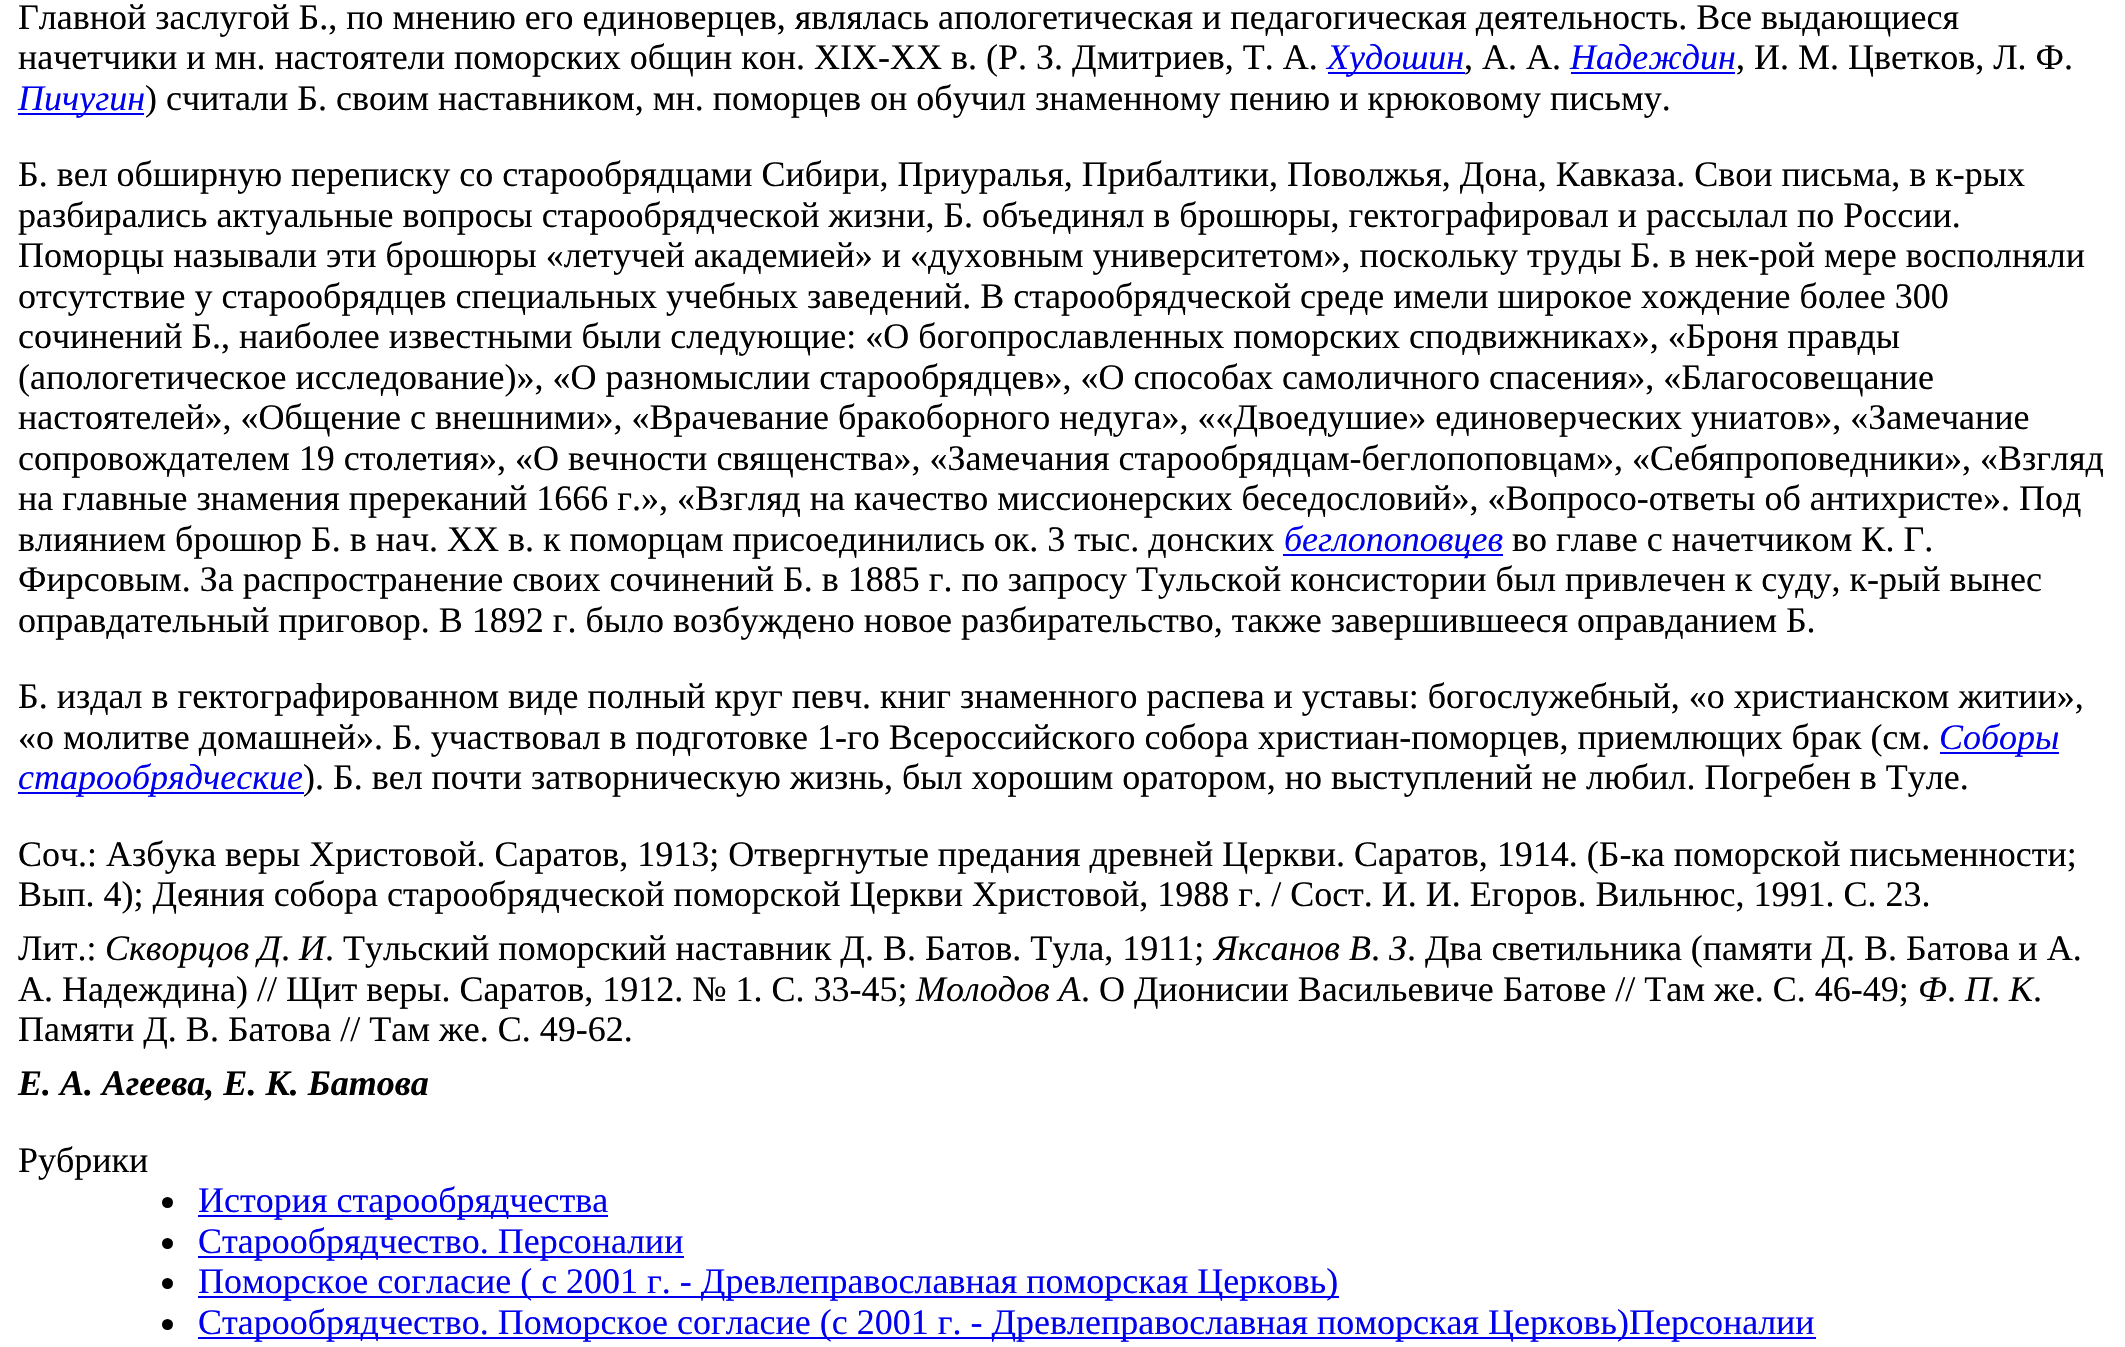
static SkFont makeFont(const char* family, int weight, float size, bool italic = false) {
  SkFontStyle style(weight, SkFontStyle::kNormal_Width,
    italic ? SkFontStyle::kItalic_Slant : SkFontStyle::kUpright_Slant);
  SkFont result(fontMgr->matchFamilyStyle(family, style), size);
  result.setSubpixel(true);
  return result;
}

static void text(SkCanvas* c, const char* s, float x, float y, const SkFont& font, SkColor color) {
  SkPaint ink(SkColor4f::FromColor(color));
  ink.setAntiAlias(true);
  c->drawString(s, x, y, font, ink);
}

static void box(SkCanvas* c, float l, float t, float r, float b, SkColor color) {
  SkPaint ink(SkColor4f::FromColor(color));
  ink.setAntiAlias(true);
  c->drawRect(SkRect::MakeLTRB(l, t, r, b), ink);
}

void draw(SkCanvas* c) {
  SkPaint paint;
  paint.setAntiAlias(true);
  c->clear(0xffffffff);
  SkFont face1 = makeFont("Liberation Serif", 400, 36);
  text(c, "Главной заслугой Б., по мнению его единоверцев, являлась апологетическая и педагогическая деятельность. Все выдающиеся", 18, 29, face1, 0xff000000);
  text(c, "начетчики и мн. настоятели поморских общин кон. XIX-XX в. (Р. З. Дмитриев, Т. А.", 18, 69, face1, 0xff000000);
  box(c, 1328, 72, 1465, 74, 0xff0000ee);
  SkFont face2 = makeFont("Liberation Serif", 400, 36, true);
  text(c, "Худошин", 1327, 69, face2, 0xff0000ee);
  text(c, ", А. А.", 1464, 69, face1, 0xff000000);
  text(c, "Надеждин", 1570, 69, face2, 0xff0000ee);
  box(c, 1571, 72, 1735, 74, 0xff0000ee);
  text(c, ", И. М. Цветков, Л. Ф.", 1736, 69, face1, 0xff000000);
  box(c, 18, 113, 144, 115, 0xff0000ee);
  text(c, "Пичугин", 18, 110, face2, 0xff0000ee);
  text(c, ") считали Б. своим наставником, мн. поморцев он обучил знаменному пению и крюковому письму.", 145, 110, face1, 0xff000000);
  text(c, "Б. вел обширную переписку со старообрядцами Сибири, Приуралья, Прибалтики, Поволжья, Дона, Кавказа. Свои письма, в к-рых", 18, 186, face1, 0xff000000);
  text(c, "разбирались актуальные вопросы старообрядческой жизни, Б. объединял в брошюры, гектографировал и рассылал по России.", 18, 227, face1, 0xff000000);
  text(c, "Поморцы называли эти брошюры «летучей академией» и «духовным университетом», поскольку труды Б. в нек-рой мере восполняли", 18, 267, face1, 0xff000000);
  text(c, "отсутствие у старообрядцев специальных учебных заведений. В старообрядческой среде имели широкое хождение более 300", 18, 308, face1, 0xff000000);
  text(c, "сочинений Б., наиболее известными были следующие: «О богопрославленных поморских сподвижниках», «Броня правды", 18, 348, face1, 0xff000000);
  text(c, "(апологетическое исследование)», «О разномыслии старообрядцев», «О способах самоличного спасения», «Благосовещание", 18, 389, face1, 0xff000000);
  text(c, "настоятелей», «Общение с внешними», «Врачевание бракоборного недуга», ««Двоедушие» единоверческих униатов», «Замечание", 18, 429, face1, 0xff000000);
  text(c, "сопровождателем 19 столетия», «О вечности священства», «Замечания старообрядцам-беглопоповцам», «Себяпроповедники», «Взгляд", 18, 470, face1, 0xff000000);
  text(c, "на главные знамения пререканий 1666 г.», «Взгляд на качество миссионерских беседословий», «Вопросо-ответы об антихристе». Под", 18, 510, face1, 0xff000000);
  text(c, "влиянием брошюр Б. в нач. XX в. к поморцам присоединились ок. 3 тыс. донских", 18, 551, face1, 0xff000000);
  box(c, 1283, 554, 1503, 556, 0xff0000ee);
  text(c, "беглопоповцев", 1284, 551, face2, 0xff0000ee);
  text(c, "во главе с начетчиком К. Г.", 1512, 551, face1, 0xff000000);
  text(c, "Фирсовым. За распространение своих сочинений Б. в 1885 г. по запросу Тульской консистории был привлечен к суду, к-рый вынес", 18, 591, face1, 0xff000000);
  text(c, "оправдательный приговор. В 1892 г. было возбуждено новое разбирательство, также завершившееся оправданием Б.", 18, 632, face1, 0xff000000);
  text(c, "Б. издал в гектографированном виде полный круг певч. книг знаменного распева и уставы: богослужебный, «о христианском житии»,", 18, 708, face1, 0xff000000);
  text(c, "«о молитве домашней». Б. участвовал в подготовке 1-го Всероссийского собора христиан-поморцев, приемлющих брак (см.", 18, 749, face1, 0xff000000);
  box(c, 1940, 752, 2059, 754, 0xff0000ee);
  text(c, "Соборы", 1939, 749, face2, 0xff0000ee);
  box(c, 18, 792, 304, 794, 0xff0000ee);
  text(c, "старообрядческие", 18, 789, face2, 0xff0000ee);
  text(c, "). Б. вел почти затворническую жизнь, был хорошим оратором, но выступлений не любил. Погребен в Туле.", 303, 789, face1, 0xff000000);
  text(c, "Соч.: Азбука веры Христовой. Саратов, 1913; Отвергнутые предания древней Церкви. Саратов, 1914. (Б-ка поморской письменности;", 18, 866, face1, 0xff000000);
  text(c, "Вып. 4); Деяния собора старообрядческой поморской Церкви Христовой, 1988 г. / Сост. И. И. Егоров. Вильнюс, 1991. С. 23.", 18, 906, face1, 0xff000000);
  text(c, "Лит.:", 18, 960, face1, 0xff000000);
  text(c, "Скворцов Д", 105, 960, face2, 0xff000000);
  text(c, ".", 281, 960, face1, 0xff000000);
  text(c, "И", 299, 960, face2, 0xff000000);
  text(c, ". Тульский поморский наставник Д. В. Батов. Тула, 1911;", 325, 960, face1, 0xff000000);
  text(c, "Яксанов В", 1214, 960, face2, 0xff000000);
  text(c, ".", 1371, 960, face1, 0xff000000);
  text(c, "З", 1389, 960, face2, 0xff000000);
  text(c, ". Два светильника (памяти Д. В. Батова и А.", 1407, 960, face1, 0xff000000);
  text(c, "А. Надеждина) // Щит веры. Саратов, 1912. № 1. С. 33-45;", 18, 1001, face1, 0xff000000);
  text(c, "Молодов А", 916, 1001, face2, 0xff000000);
  text(c, ". О Дионисии Васильевиче Батове // Там же. С. 46-49;", 1081, 1001, face1, 0xff000000);
  text(c, "Ф", 1918, 1001, face2, 0xff000000);
  text(c, ".", 1947, 1001, face1, 0xff000000);
  text(c, "П", 1965, 1001, face2, 0xff000000);
  text(c, ".", 1991, 1001, face1, 0xff000000);
  text(c, "К", 2009, 1001, face2, 0xff000000);
  text(c, ".", 2033, 1001, face1, 0xff000000);
  text(c, "Памяти Д. В. Батова // Там же. С. 49-62.", 18, 1041, face1, 0xff000000);
  SkFont face3 = makeFont("Liberation Serif", 700, 36, true);
  text(c, "Е. А. Агеева, Е. К. Батова", 18, 1095, face3, 0xff000000);
  text(c, "Рубрики", 18, 1172, face1, 0xff000000);
  paint.setColor(0xff000000);
  c->drawCircle(167.5f, 1202.5f, 5.5f, paint);
  box(c, 198, 1215, 608, 1217, 0xff0000ee);
  text(c, "История старообрядчества", 198, 1212, face1, 0xff0000ee);
  c->drawCircle(167.5f, 1243.5f, 5.5f, paint);
  box(c, 198, 1256, 684, 1258, 0xff0000ee);
  text(c, "Старообрядчество. Персоналии", 198, 1253, face1, 0xff0000ee);
  c->drawCircle(167.5f, 1283.5f, 5.5f, paint);
  box(c, 198, 1296, 1339, 1298, 0xff0000ee);
  text(c, "Поморское согласие ( с 2001 г. - Древлеправославная поморская Церковь)", 198, 1293, face1, 0xff0000ee);
  c->drawCircle(167.5f, 1324.5f, 5.5f, paint);
  box(c, 198, 1337, 1816, 1339, 0xff0000ee);
  text(c, "Старообрядчество. Поморское согласие (с 2001 г. - Древлеправославная поморская Церковь)Персоналии", 198, 1334, face1, 0xff0000ee);
}
